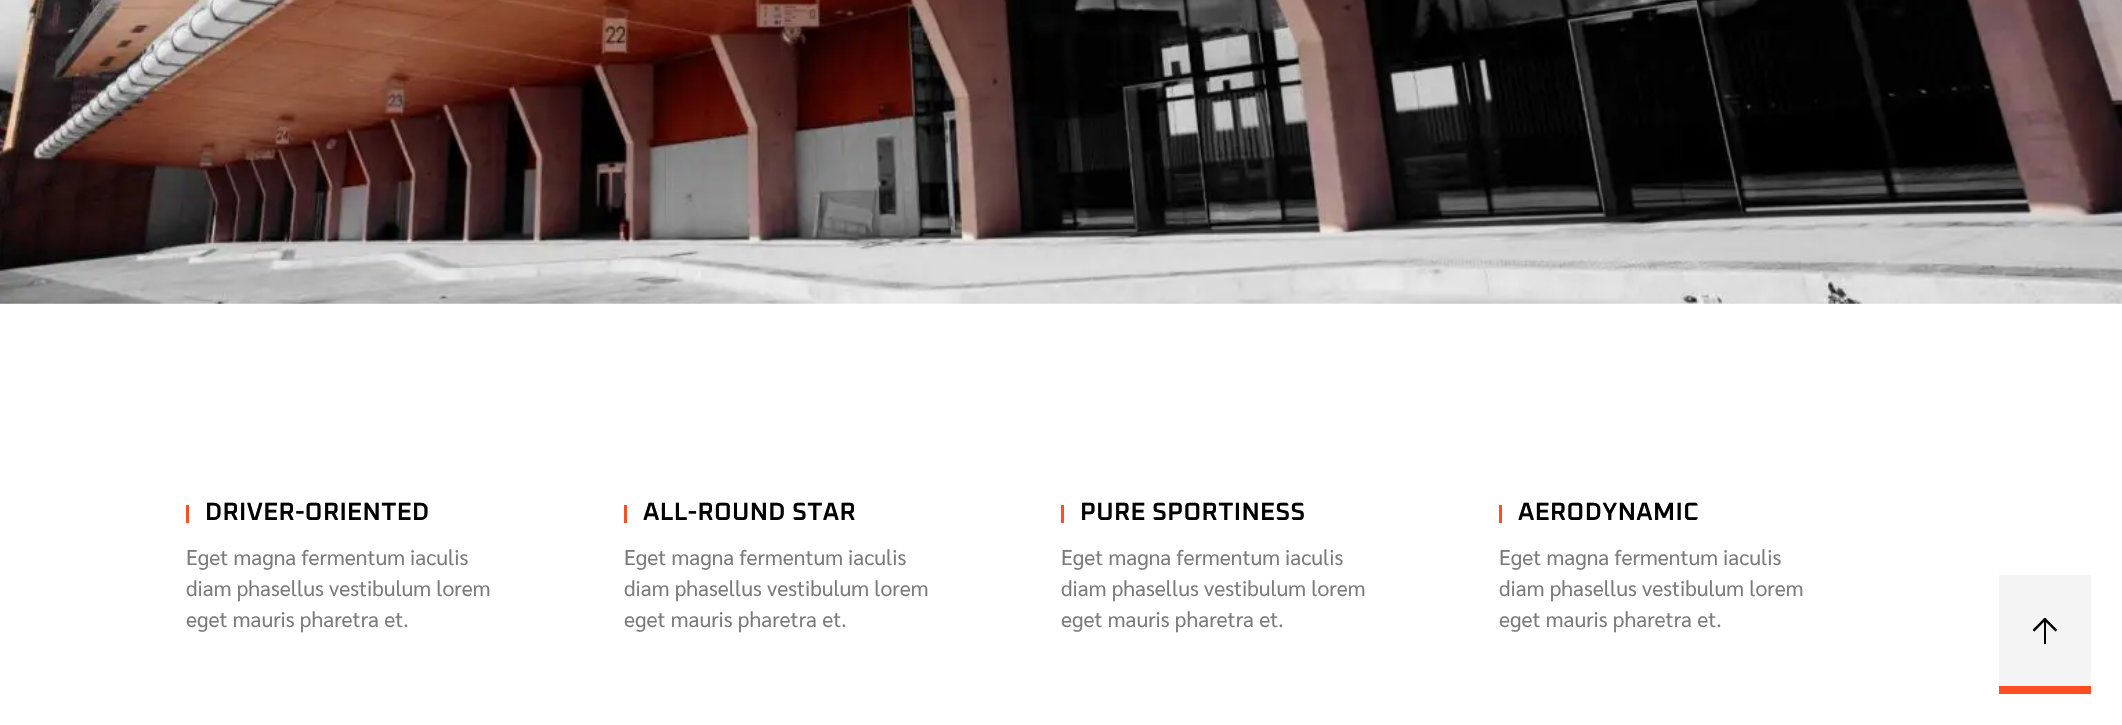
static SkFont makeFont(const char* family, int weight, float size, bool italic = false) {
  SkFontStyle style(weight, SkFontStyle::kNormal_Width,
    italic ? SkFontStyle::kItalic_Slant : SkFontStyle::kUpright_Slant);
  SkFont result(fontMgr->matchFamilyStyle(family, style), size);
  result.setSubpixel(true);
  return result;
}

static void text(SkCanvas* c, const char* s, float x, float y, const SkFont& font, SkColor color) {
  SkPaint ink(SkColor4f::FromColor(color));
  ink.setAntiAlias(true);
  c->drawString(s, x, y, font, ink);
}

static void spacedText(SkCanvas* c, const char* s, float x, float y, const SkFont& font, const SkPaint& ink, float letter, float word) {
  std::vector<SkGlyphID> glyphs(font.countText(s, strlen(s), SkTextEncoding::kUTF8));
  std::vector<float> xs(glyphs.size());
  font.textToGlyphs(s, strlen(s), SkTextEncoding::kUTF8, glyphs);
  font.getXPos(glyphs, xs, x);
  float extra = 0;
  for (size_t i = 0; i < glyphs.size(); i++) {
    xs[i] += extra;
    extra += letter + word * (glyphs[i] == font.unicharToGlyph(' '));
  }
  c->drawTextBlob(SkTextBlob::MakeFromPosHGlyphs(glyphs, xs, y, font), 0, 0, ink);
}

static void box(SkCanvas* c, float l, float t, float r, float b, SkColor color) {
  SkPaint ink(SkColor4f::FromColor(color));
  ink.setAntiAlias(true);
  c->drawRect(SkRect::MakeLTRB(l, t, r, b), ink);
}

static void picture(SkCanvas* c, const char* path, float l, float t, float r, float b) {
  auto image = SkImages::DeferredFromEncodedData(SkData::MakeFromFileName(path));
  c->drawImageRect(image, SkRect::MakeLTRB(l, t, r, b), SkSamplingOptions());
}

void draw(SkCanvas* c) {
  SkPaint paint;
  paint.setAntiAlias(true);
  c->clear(0xffffffff);
  picture(c, "img_01.png", 0, 0, 2122, 304);
  box(c, 186, 505, 189, 523, 0xffff4d24);
  SkFont face1 = makeFont("Oxanium", 600, 25);
  paint.setColor(0xff000000);
  spacedText(c, "DRIVER-ORIENTED", 205, 520, face1, paint, 0.4f, 0);
  SkFont face2 = makeFont("Sarabun", 400, 21.25f);
  text(c, "Eget magna fermentum iaculis", 186, 565, face2, 0xff7b7b7b);
  text(c, "diam phasellus vestibulum lorem", 186, 596, face2, 0xff7b7b7b);
  text(c, "eget mauris pharetra et.", 186, 627, face2, 0xff7b7b7b);
  box(c, 624, 505, 627, 523, 0xffff4d24);
  spacedText(c, "ALL-ROUND STAR", 643, 520, face1, paint, 0.4f, 0);
  text(c, "Eget magna fermentum iaculis", 624, 565, face2, 0xff7b7b7b);
  text(c, "diam phasellus vestibulum lorem", 624, 596, face2, 0xff7b7b7b);
  text(c, "eget mauris pharetra et.", 624, 627, face2, 0xff7b7b7b);
  box(c, 1061, 505, 1064, 523, 0xffff4d24);
  spacedText(c, "PURE SPORTINESS", 1080, 520, face1, paint, 0.4f, 0);
  text(c, "Eget magna fermentum iaculis", 1061, 565, face2, 0xff7b7b7b);
  text(c, "diam phasellus vestibulum lorem", 1061, 596, face2, 0xff7b7b7b);
  text(c, "eget mauris pharetra et.", 1061, 627, face2, 0xff7b7b7b);
  box(c, 1499, 505, 1502, 523, 0xffff4d24);
  spacedText(c, "AERODYNAMIC", 1518, 520, face1, paint, 0.4f, 0);
  text(c, "Eget magna fermentum iaculis", 1499, 565, face2, 0xff7b7b7b);
  text(c, "diam phasellus vestibulum lorem", 1499, 596, face2, 0xff7b7b7b);
  text(c, "eget mauris pharetra et.", 1499, 627, face2, 0xff7b7b7b);
  box(c, 1999, 575, 2091, 686, 0xfff4f4f4);
  picture(c, "img_02.png", 2033, 618, 2058, 644);
  box(c, 1999, 686, 2091, 694, 0xffff4d24);
}
